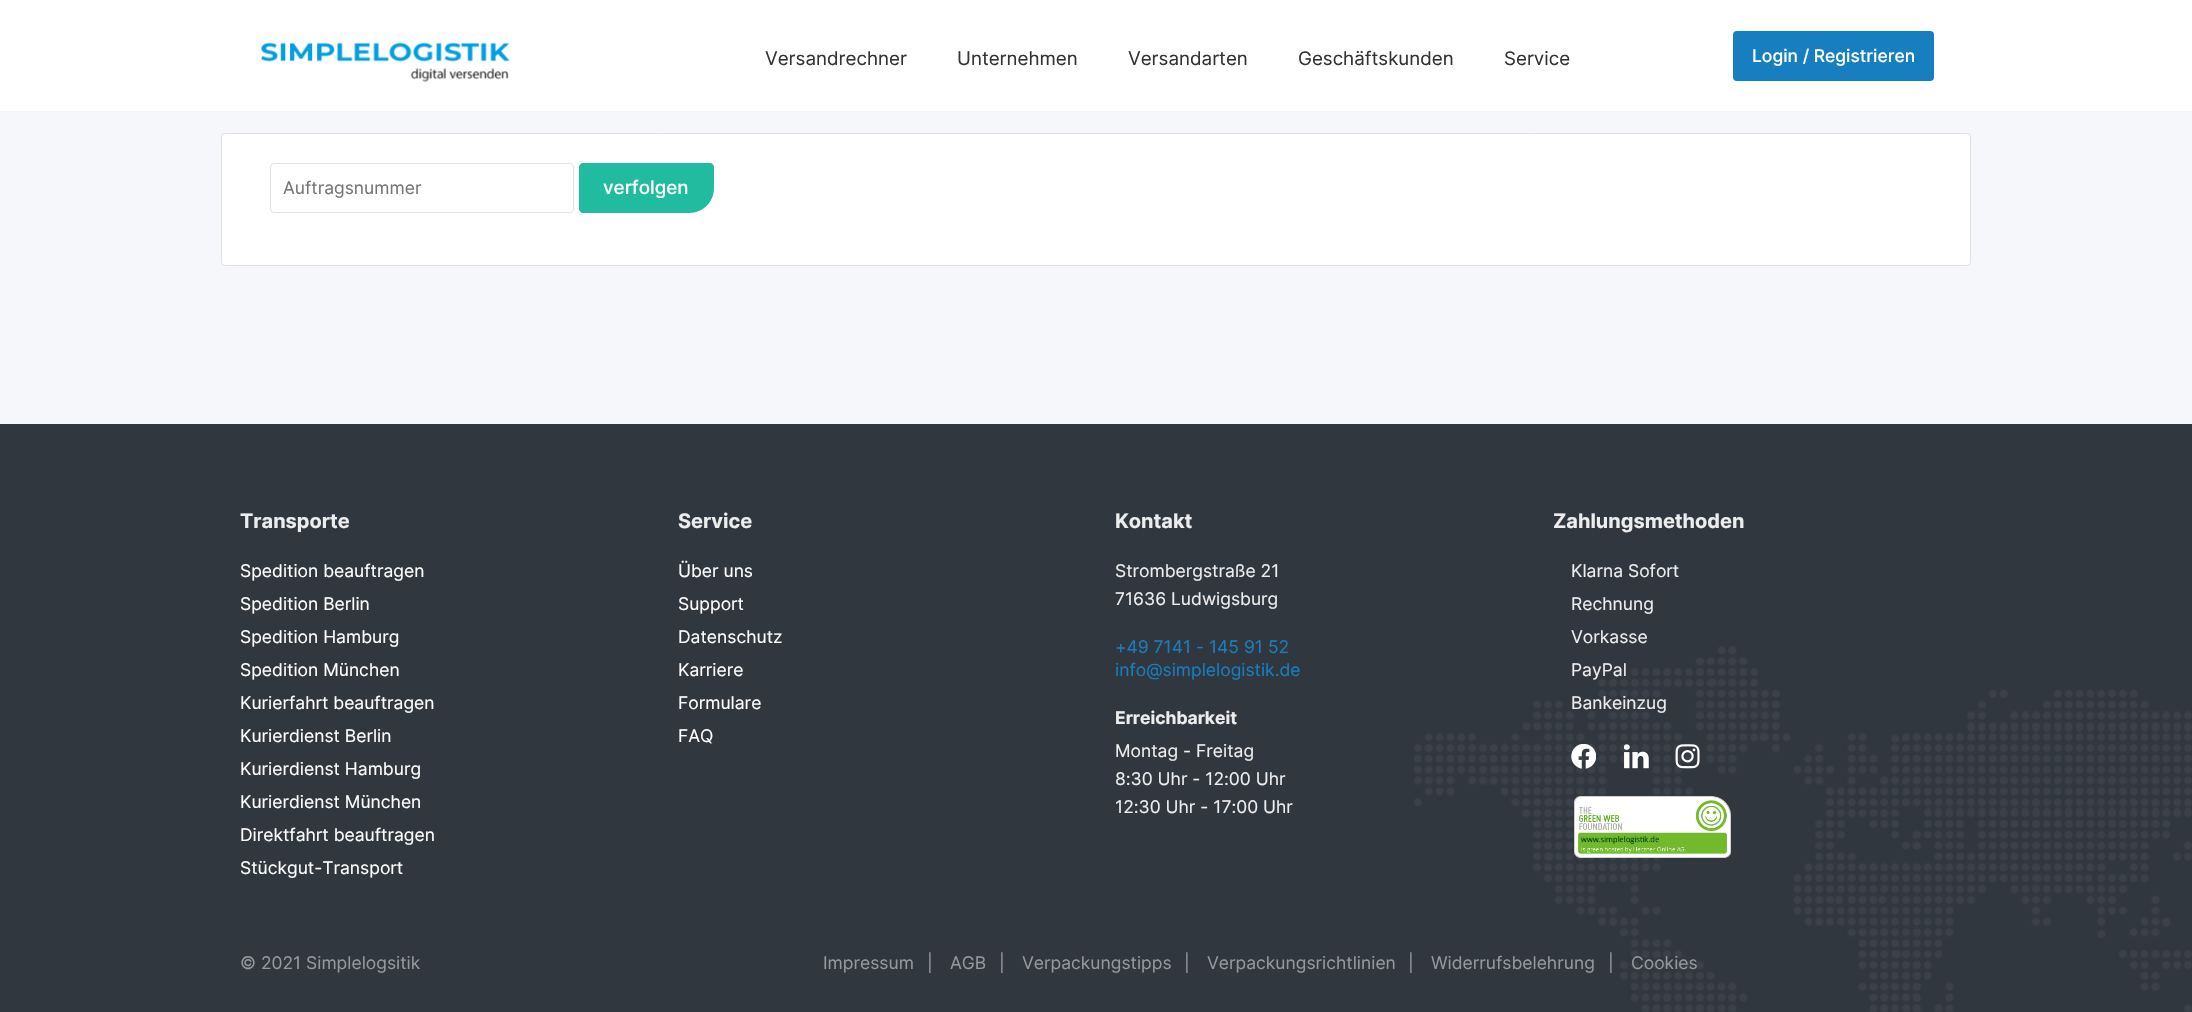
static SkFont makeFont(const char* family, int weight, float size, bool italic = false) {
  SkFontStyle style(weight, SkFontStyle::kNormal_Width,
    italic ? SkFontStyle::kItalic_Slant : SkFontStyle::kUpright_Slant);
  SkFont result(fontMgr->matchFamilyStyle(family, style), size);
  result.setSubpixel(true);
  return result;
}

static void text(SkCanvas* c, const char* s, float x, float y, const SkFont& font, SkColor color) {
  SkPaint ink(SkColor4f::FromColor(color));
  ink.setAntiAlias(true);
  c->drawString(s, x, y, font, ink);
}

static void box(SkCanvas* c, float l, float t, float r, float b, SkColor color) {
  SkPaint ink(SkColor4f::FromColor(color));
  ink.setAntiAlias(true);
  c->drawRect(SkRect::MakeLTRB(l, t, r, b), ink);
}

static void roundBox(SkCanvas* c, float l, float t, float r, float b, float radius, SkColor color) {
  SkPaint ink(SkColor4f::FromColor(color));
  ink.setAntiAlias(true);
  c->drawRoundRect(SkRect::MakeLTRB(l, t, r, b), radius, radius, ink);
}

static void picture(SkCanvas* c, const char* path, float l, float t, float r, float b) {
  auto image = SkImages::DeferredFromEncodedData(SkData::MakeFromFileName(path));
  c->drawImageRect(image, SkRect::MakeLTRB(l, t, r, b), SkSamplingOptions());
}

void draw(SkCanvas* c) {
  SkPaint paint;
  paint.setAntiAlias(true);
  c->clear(0xfff5f7fa);
  box(c, 0, 0, 2192, 111, 0xffffffff);
  picture(c, "img_01.png", 261, 42, 510, 82);
  SkFont face1 = makeFont("Inter", 400, 18.75f);
  text(c, "Versandrechner", 765, 65, face1, 0xff333333);
  text(c, "Unternehmen", 957, 65, face1, 0xff333333);
  text(c, "Versandarten", 1128, 65, face1, 0xff333333);
  text(c, "Geschäftskunden", 1298, 65, face1, 0xff333333);
  text(c, "Service", 1504, 65, face1, 0xff333333);
  roundBox(c, 1733, 31, 1934, 81, 4, 0xff177ec0);
  SkFont face2 = makeFont("Inter", 500, 17.5f);
  text(c, "Login / Registrieren", 1752, 62, face2, 0xffffffff);
  paint.setColor(0xffffffff);
  c->drawRoundRect(SkRect::MakeLTRB(221.5f, 133.5f, 1970.5f, 265.5f), 3.5f, 3.5f, paint);
  paint.setStyle(SkPaint::kStroke_Style);
  paint.setStrokeWidth(1);
  paint.setColor(0xffe0e0e0);
  c->drawRoundRect(SkRect::MakeLTRB(221.5f, 133.5f, 1970.5f, 265.5f), 3.5f, 3.5f, paint);
  paint.setColor(0xffe2e2e2);
  c->drawRoundRect(SkRect::MakeLTRB(270.5f, 163.5f, 573.5f, 212.5f), 3.5f, 3.5f, paint);
  SkFont face3 = makeFont("Inter", 400, 17.5f);
  text(c, "Auftragsnummer", 283, 194, face3, 0xff757575);
  paint.setStyle(SkPaint::kFill_Style);
  paint.setColor(0xff21bb9f);
  c->drawPath(SkPathBuilder().moveTo(583, 163).lineTo(710, 163).cubicTo(712, 163, 714, 165, 714, 167).lineTo(714, 188).cubicTo(714, 202, 703, 213, 689, 213).lineTo(583, 213).cubicTo(581, 213, 579, 211, 579, 209).lineTo(579, 167).cubicTo(579, 165, 581, 163, 583, 163).close().detach(), paint);
  SkFont face4 = makeFont("Inter", 500, 18.75f);
  text(c, "verfolgen", 603, 194, face4, 0xffffffff);
  box(c, 0, 424, 2192, 1012, 0xff31373f);
  SkFont face5 = makeFont("Inter", 700, 20);
  text(c, "Transporte", 240, 528, face5, 0xffededed);
  text(c, "Spedition beauftragen", 240, 577, face3, 0xffffffff);
  text(c, "Spedition Berlin", 240, 610, face3, 0xffffffff);
  text(c, "Spedition Hamburg", 240, 643, face3, 0xffffffff);
  text(c, "Spedition München", 240, 676, face3, 0xffffffff);
  text(c, "Kurierfahrt beauftragen", 240, 709, face3, 0xffffffff);
  text(c, "Kurierdienst Berlin", 240, 742, face3, 0xffffffff);
  text(c, "Kurierdienst Hamburg", 240, 775, face3, 0xffffffff);
  text(c, "Kurierdienst München", 240, 808, face3, 0xffffffff);
  text(c, "Direktfahrt beauftragen", 240, 841, face3, 0xffffffff);
  text(c, "Stückgut-Transport", 240, 874, face3, 0xffffffff);
  text(c, "Service", 678, 528, face5, 0xffededed);
  text(c, "Über uns", 678, 577, face3, 0xffffffff);
  text(c, "Support", 678, 610, face3, 0xffffffff);
  text(c, "Datenschutz", 678, 643, face3, 0xffffffff);
  text(c, "Karriere", 678, 676, face3, 0xffffffff);
  text(c, "Formulare", 678, 709, face3, 0xffffffff);
  text(c, "FAQ", 678, 742, face3, 0xffffffff);
  text(c, "Kontakt", 1115, 528, face5, 0xffededed);
  text(c, "Strombergstraße 21", 1115, 577, face3, 0xffededed);
  text(c, "71636 Ludwigsburg", 1115, 605, face3, 0xffededed);
  text(c, "+49 7141 - 145 91 52", 1115, 653, face3, 0xff177ec0);
  text(c, "info@simplelogistik.de", 1115, 676, face3, 0xff177ec0);
  SkFont face6 = makeFont("Inter", 700, 17.5f);
  text(c, "Erreichbarkeit", 1115, 724, face6, 0xffededed);
  text(c, "Montag - Freitag", 1115, 757, face3, 0xffededed);
  text(c, "8:30 Uhr - 12:00 Uhr", 1115, 785, face3, 0xffededed);
  text(c, "12:30 Uhr - 17:00 Uhr", 1115, 813, face3, 0xffededed);
  text(c, "Zahlungsmethoden", 1553, 528, face5, 0xffededed);
  text(c, "Klarna Sofort", 1571, 577, face3, 0xffededed);
  text(c, "Rechnung", 1571, 610, face3, 0xffededed);
  text(c, "Vorkasse", 1571, 643, face3, 0xffededed);
  picture(c, "img_06.png", 1414, 646, 2192, 1012);
  text(c, "PayPal", 1571, 676, face3, 0xffededed);
  text(c, "Bankeinzug", 1571, 709, face3, 0xffededed);
  picture(c, "img_02.png", 1571, 744, 1596, 769);
  picture(c, "img_03.png", 1624, 744, 1649, 769);
  picture(c, "img_04.png", 1675, 744, 1700, 769);
  picture(c, "img_05.png", 1574, 796, 1731, 858);
  text(c, "© 2021 Simplelogsitik", 240, 969, face3, 0xff95999e);
  text(c, "Impressum", 823, 969, face3, 0xff95999e);
  text(c, "|", 927, 969, face3, 0xff95999e);
  text(c, "AGB", 950, 969, face3, 0xff95999e);
  text(c, "|", 999, 969, face3, 0xff95999e);
  text(c, "Verpackungstipps", 1022, 969, face3, 0xff95999e);
  text(c, "|", 1184, 969, face3, 0xff95999e);
  text(c, "Verpackungsrichtlinien", 1207, 969, face3, 0xff95999e);
  text(c, "|", 1408, 969, face3, 0xff95999e);
  text(c, "Widerrufsbelehrung", 1431, 969, face3, 0xff95999e);
  text(c, "|", 1608, 969, face3, 0xff95999e);
  text(c, "Cookies", 1631, 969, face3, 0xff95999e);
}
